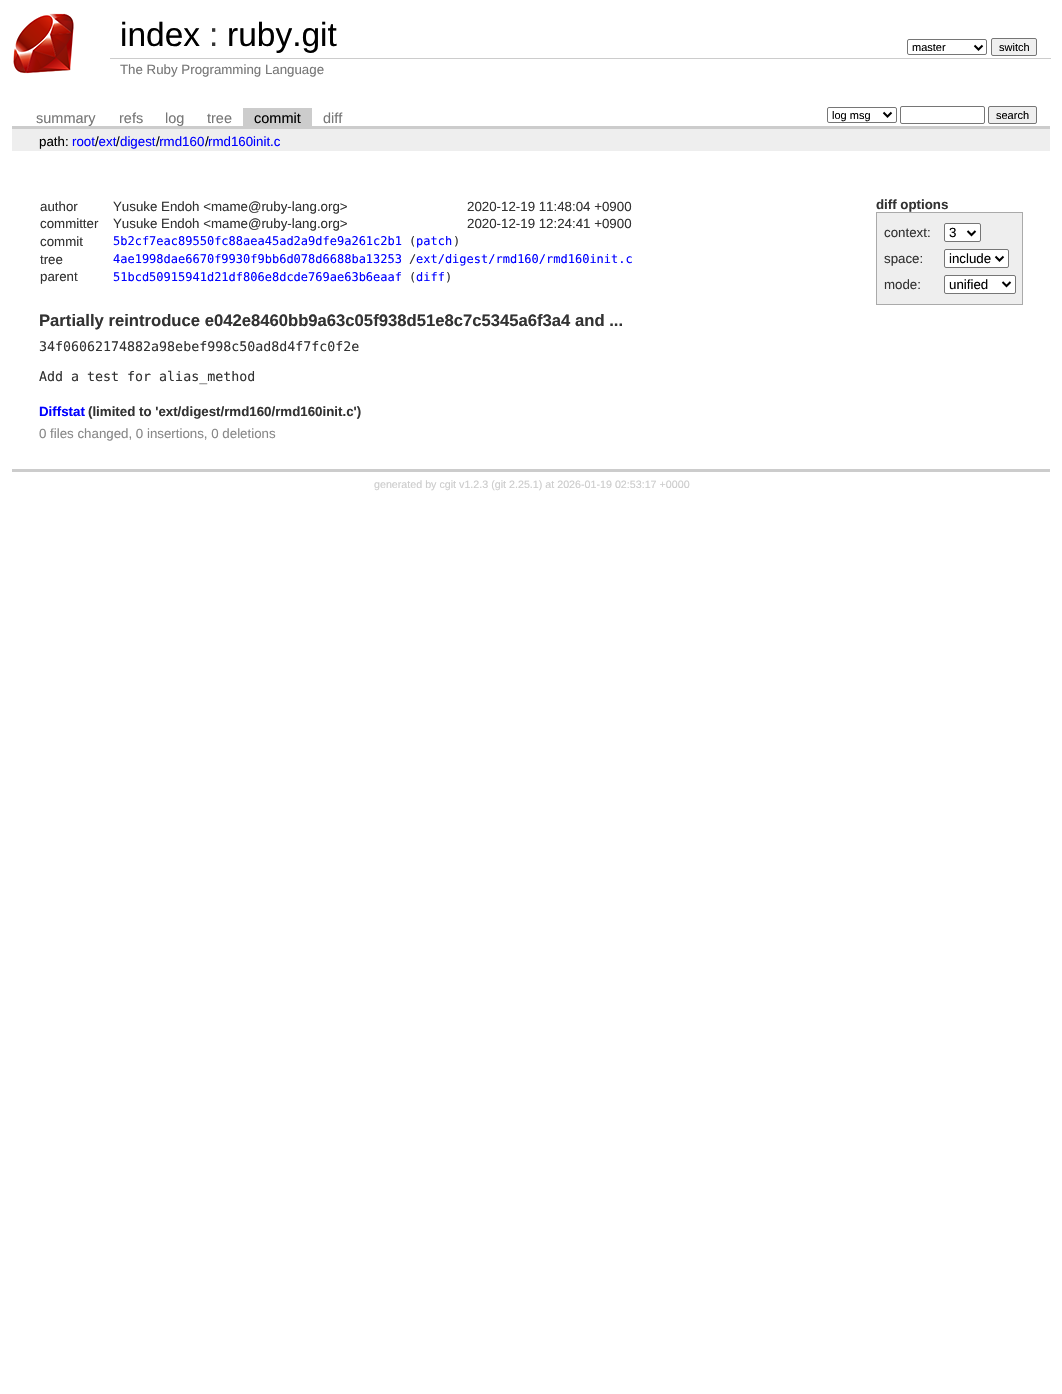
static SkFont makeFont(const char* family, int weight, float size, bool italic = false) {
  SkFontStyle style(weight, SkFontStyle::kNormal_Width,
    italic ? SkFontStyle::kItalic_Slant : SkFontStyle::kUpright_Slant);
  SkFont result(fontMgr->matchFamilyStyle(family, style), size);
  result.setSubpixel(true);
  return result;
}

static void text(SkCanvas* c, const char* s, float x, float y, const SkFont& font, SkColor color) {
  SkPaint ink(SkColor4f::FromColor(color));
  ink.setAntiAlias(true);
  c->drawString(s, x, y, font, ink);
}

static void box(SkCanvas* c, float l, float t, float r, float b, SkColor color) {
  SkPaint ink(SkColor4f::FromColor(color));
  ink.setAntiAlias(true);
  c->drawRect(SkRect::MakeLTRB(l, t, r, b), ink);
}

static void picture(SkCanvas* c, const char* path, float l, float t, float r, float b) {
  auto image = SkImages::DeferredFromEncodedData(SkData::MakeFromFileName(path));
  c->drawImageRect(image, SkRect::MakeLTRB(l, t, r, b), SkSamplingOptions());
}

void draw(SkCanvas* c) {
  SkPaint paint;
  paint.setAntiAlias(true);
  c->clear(0xffffffff);
  picture(c, "img_01.png", 13, 13, 74, 74);
  SkFont face1 = makeFont("Liberation Sans", 400, 33.5f);
  text(c, "index", 120, 46, face1, 0xff000000);
  text(c, ":", 209, 46, face1, 0xff333333);
  text(c, "ruby.git", 227, 46, face1, 0xff000000);
  paint.setStyle(SkPaint::kStroke_Style);
  paint.setStrokeWidth(1);
  paint.setColor(0xff767676);
  c->drawRoundRect(SkRect::MakeLTRB(907.5f, 39.5f, 986.5f, 54.5f), 1.5f, 1.5f, paint);
  paint.setStrokeWidth(2);
  paint.setColor(0xff000000);
  c->drawPath(SkPathBuilder().moveTo(974.5f, 45.5f).lineTo(978.5f, 49.5f).lineTo(982.5f, 45.5f).detach(), paint);
  SkFont face2 = makeFont("Liberation Sans", 400, 11);
  text(c, "master", 912, 51, face2, 0xff000000);
  paint.setStyle(SkPaint::kFill_Style);
  paint.setColor(0xffefefef);
  c->drawRoundRect(SkRect::MakeLTRB(991.5f, 38.5f, 1036.5f, 55.5f), 1.5f, 1.5f, paint);
  paint.setStyle(SkPaint::kStroke_Style);
  paint.setStrokeWidth(1);
  paint.setColor(0xff767676);
  c->drawRoundRect(SkRect::MakeLTRB(991.5f, 38.5f, 1036.5f, 55.5f), 1.5f, 1.5f, paint);
  text(c, "switch", 999, 51, face2, 0xff000000);
  box(c, 110, 58, 1051, 59, 0xffcccccc);
  SkFont face3 = makeFont("Liberation Sans", 400, 13.3f);
  text(c, "The Ruby Programming Language", 120, 74, face3, 0xff777777);
  box(c, 12, 126, 1050, 129, 0xffcccccc);
  SkFont face4 = makeFont("Liberation Sans", 400, 14.5f);
  text(c, "summary", 36, 123, face4, 0xff777777);
  text(c, "refs", 119, 123, face4, 0xff777777);
  text(c, "log", 165, 123, face4, 0xff777777);
  text(c, "tree", 207, 123, face4, 0xff777777);
  box(c, 243, 108, 312, 126, 0xffcccccc);
  text(c, "commit", 254, 123, face4, 0xff000000);
  text(c, "diff", 323, 123, face4, 0xff777777);
  c->drawRoundRect(SkRect::MakeLTRB(827.5f, 107.5f, 896.5f, 122.5f), 1.5f, 1.5f, paint);
  paint.setStrokeWidth(2);
  paint.setColor(0xff000000);
  c->drawPath(SkPathBuilder().moveTo(883.5f, 112.5f).lineTo(887.5f, 116.5f).lineTo(891.5f, 112.5f).detach(), paint);
  text(c, "log msg", 832, 119, face2, 0xff000000);
  paint.setStrokeWidth(1);
  paint.setColor(0xff767676);
  c->drawRoundRect(SkRect::MakeLTRB(900.5f, 106.5f, 984.5f, 123.5f), 1.5f, 1.5f, paint);
  paint.setStyle(SkPaint::kFill_Style);
  paint.setColor(0xffefefef);
  c->drawRoundRect(SkRect::MakeLTRB(988.5f, 106.5f, 1036.5f, 123.5f), 1.5f, 1.5f, paint);
  paint.setStyle(SkPaint::kStroke_Style);
  paint.setColor(0xff767676);
  c->drawRoundRect(SkRect::MakeLTRB(988.5f, 106.5f, 1036.5f, 123.5f), 1.5f, 1.5f, paint);
  text(c, "search", 996, 119, face2, 0xff000000);
  box(c, 12, 129, 1050, 151, 0xffeeeeee);
  text(c, "path:", 39, 146, face3, 0xff000000);
  text(c, "root ext", 72, 146, face3, 0xff0000ff);
  text(c, "/", 95, 146, face3, 0xff000000);
  text(c, "/", 116, 146, face3, 0xff000000);
  text(c, "digest rmd160 rmd160init.c", 120, 146, face3, 0xff0000ff);
  text(c, "/", 156, 146, face3, 0xff000000);
  text(c, "/", 205, 146, face3, 0xff000000);
  box(c, 12, 469, 1050, 472, 0xffcccccc);
  text(c, "author", 40, 211, face3, 0xff333333);
  text(c, "Yusuke Endoh <mame@ruby-lang.org>", 113, 211, face3, 0xff333333);
  text(c, "2020-12-19 11:48:04 +0900", 467, 211, face3, 0xff333333);
  text(c, "committer", 40, 228, face3, 0xff333333);
  text(c, "Yusuke Endoh <mame@ruby-lang.org>", 113, 228, face3, 0xff333333);
  text(c, "2020-12-19 12:24:41 +0900", 467, 228, face3, 0xff333333);
  text(c, "commit", 40, 246, face3, 0xff333333);
  SkFont face5 = makeFont("DejaVu Sans Mono", 400, 12);
  text(c, "5b2cf7eac89550fc88aea45ad2a9dfe9a261c2b1", 113, 245, face5, 0xff0000ff);
  text(c, "(", 409, 245, face5, 0xff333333);
  text(c, "patch", 416, 245, face5, 0xff0000ff);
  text(c, ")", 453, 245, face5, 0xff333333);
  text(c, "tree", 40, 264, face3, 0xff333333);
  text(c, "4ae1998dae6670f9930f9bb6d078d6688ba13253", 113, 263, face5, 0xff0000ff);
  text(c, "/", 409, 263, face5, 0xff333333);
  text(c, "ext/digest/rmd160/rmd160init.c", 416, 263, face5, 0xff0000ff);
  text(c, "parent", 40, 281, face3, 0xff333333);
  text(c, "51bcd50915941d21df806e8dcde769ae63b6eaaf", 113, 281, face5, 0xff0000ff);
  text(c, "(", 409, 281, face5, 0xff333333);
  text(c, "diff", 416, 281, face5, 0xff0000ff);
  text(c, ")", 445, 281, face5, 0xff333333);
  SkFont face6 = makeFont("Liberation Sans", 700, 13.3f);
  text(c, "diff options", 876, 209, face6, 0xff333333);
  box(c, 877, 213, 1022, 304, 0xffeeeeee);
  box(c, 876, 212, 1023, 213, 0xffaaaaaa);
  box(c, 1022, 212, 1023, 305, 0xffaaaaaa);
  box(c, 876, 304, 1023, 305, 0xffaaaaaa);
  box(c, 876, 212, 877, 305, 0xffaaaaaa);
  text(c, "context:", 884, 237, face3, 0xff333333);
  paint.setStyle(SkPaint::kFill_Style);
  paint.setColor(0xffffffff);
  c->drawRoundRect(SkRect::MakeLTRB(944.5f, 223.5f, 980.5f, 241.5f), 1.5f, 1.5f, paint);
  paint.setStyle(SkPaint::kStroke_Style);
  paint.setColor(0xff767676);
  c->drawRoundRect(SkRect::MakeLTRB(944.5f, 223.5f, 980.5f, 241.5f), 1.5f, 1.5f, paint);
  paint.setStrokeWidth(2);
  paint.setColor(0xff000000);
  c->drawPath(SkPathBuilder().moveTo(967.5f, 231).lineTo(971.5f, 235).lineTo(975.5f, 231).detach(), paint);
  text(c, "3", 949, 237, face3, 0xff000000);
  text(c, "space:", 884, 263, face3, 0xff333333);
  paint.setStyle(SkPaint::kFill_Style);
  paint.setColor(0xffffffff);
  c->drawRoundRect(SkRect::MakeLTRB(944.5f, 249.5f, 1008.5f, 267.5f), 1.5f, 1.5f, paint);
  paint.setStyle(SkPaint::kStroke_Style);
  paint.setStrokeWidth(1);
  paint.setColor(0xff767676);
  c->drawRoundRect(SkRect::MakeLTRB(944.5f, 249.5f, 1008.5f, 267.5f), 1.5f, 1.5f, paint);
  paint.setStrokeWidth(2);
  paint.setColor(0xff000000);
  c->drawPath(SkPathBuilder().moveTo(995.5f, 256.5f).lineTo(999.5f, 260.5f).lineTo(1003.5f, 256.5f).detach(), paint);
  text(c, "include", 949, 263, face3, 0xff000000);
  text(c, "mode:", 884, 289, face3, 0xff333333);
  paint.setStyle(SkPaint::kFill_Style);
  paint.setColor(0xffffffff);
  c->drawRoundRect(SkRect::MakeLTRB(944.5f, 275.5f, 1015.5f, 293.5f), 1.5f, 1.5f, paint);
  paint.setStyle(SkPaint::kStroke_Style);
  paint.setStrokeWidth(1);
  paint.setColor(0xff767676);
  c->drawRoundRect(SkRect::MakeLTRB(944.5f, 275.5f, 1015.5f, 293.5f), 1.5f, 1.5f, paint);
  paint.setStrokeWidth(2);
  paint.setColor(0xff000000);
  c->drawPath(SkPathBuilder().moveTo(1002.5f, 282).lineTo(1006.5f, 286).lineTo(1010.5f, 282).detach(), paint);
  text(c, "unified", 949, 289, face3, 0xff000000);
  SkFont face7 = makeFont("Liberation Sans", 700, 16.65f);
  text(c, "Partially reintroduce e042e8460bb9a63c05f938d51e8c7c5345a6f3a4 and ...", 39, 326, face7, 0xff333333);
  SkFont face8 = makeFont("DejaVu Sans Mono", 400, 13.3f);
  text(c, "34f06062174882a98ebef998c50ad8d4f7fc0f2e", 39, 351, face8, 0xff333333);
  text(c, "Add a test for alias_method", 39, 381, face8, 0xff333333);
  text(c, "Diffstat", 39, 416, face6, 0xff0000ff);
  text(c, "(limited to 'ext/digest/rmd160/rmd160init.c')", 88, 416, face6, 0xff333333);
  text(c, "0 files changed, 0 insertions, 0 deletions", 39, 438, face3, 0xff888888);
  SkFont face9 = makeFont("Liberation Sans", 400, 10.7f);
  text(c, "generated by cgit v1.2.3 (git 2.25.1) at 2026-01-19 02:53:17 +0000", 374, 488, face9, 0xffcccccc);
}
